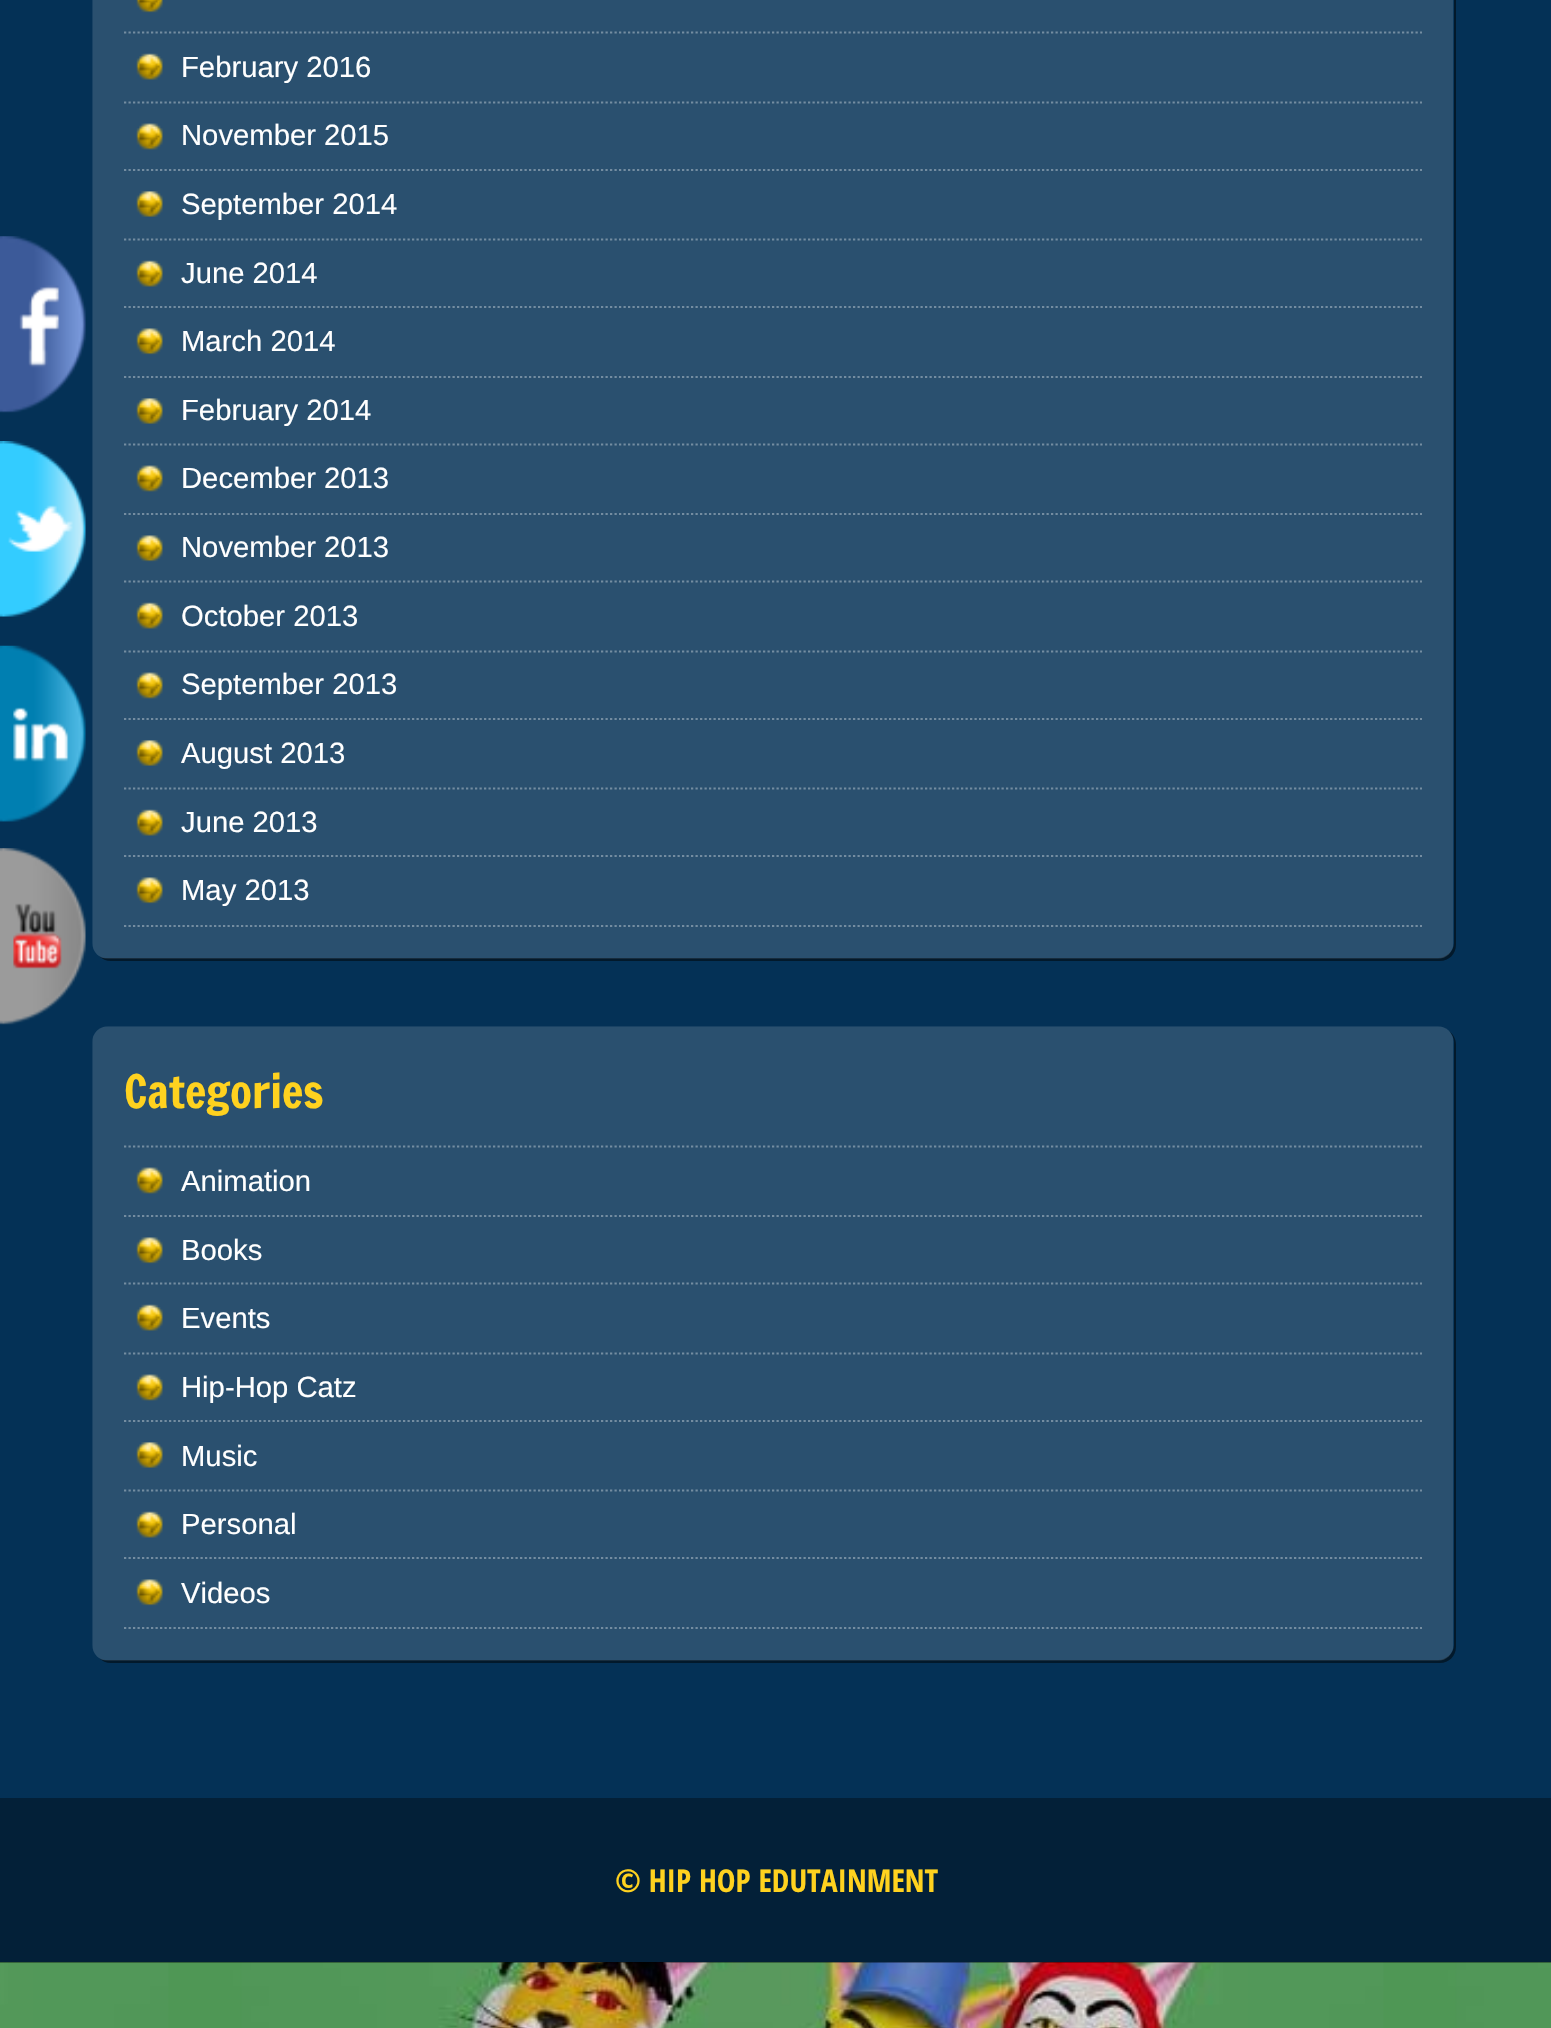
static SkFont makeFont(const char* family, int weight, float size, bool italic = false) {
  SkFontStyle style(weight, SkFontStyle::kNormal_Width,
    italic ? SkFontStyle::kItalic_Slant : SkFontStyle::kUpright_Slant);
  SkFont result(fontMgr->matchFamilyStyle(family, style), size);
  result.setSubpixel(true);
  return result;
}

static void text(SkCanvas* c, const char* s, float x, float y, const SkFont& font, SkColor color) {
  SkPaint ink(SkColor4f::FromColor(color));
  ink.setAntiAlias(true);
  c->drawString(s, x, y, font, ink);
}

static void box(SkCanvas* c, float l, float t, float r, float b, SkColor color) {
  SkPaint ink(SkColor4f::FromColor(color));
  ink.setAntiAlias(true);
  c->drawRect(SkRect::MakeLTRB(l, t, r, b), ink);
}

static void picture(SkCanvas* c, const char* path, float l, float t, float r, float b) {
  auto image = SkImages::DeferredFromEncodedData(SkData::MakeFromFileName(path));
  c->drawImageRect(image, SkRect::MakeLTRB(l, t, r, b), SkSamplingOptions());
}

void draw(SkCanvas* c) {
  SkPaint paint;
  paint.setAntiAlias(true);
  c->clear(0xffffffff);
  picture(c, "img_01.png", 0, 1962, 1551, 2028);
  box(c, 0, 0, 1551, 1962, 0xff043156);
  picture(c, "img_02.png", 0, 236, 86, 413);
  paint.setColor(0xff02192b);
  c->drawPath(SkPathBuilder().moveTo(99, 956).cubicTo(102, 959, 106, 961, 111, 961).lineTo(1440, 961).cubicTo(1449, 961, 1456, 954, 1456, 945).lineTo(1456, -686).cubicTo(1456, -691, 1454, -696, 1450, -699).cubicTo(1452, -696, 1454, -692, 1454, -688).lineTo(1454, 943).cubicTo(1454, 951, 1446, 958, 1438, 958).lineTo(108, 958).cubicTo(105, 958, 102, 958, 99, 956).close().detach(), paint);
  picture(c, "img_03.png", 92, 0, 1454, 959);
  picture(c, "img_04.png", 136, 0, 163, 13);
  paint.setStyle(SkPaint::kStroke_Style);
  paint.setStrokeWidth(2.2f);
  paint.setColor(0xff748da1);
  paint.setPathEffect(SkDashPathEffect::Make({{2.25f, 2.25f}}, 0));
  c->drawPath(SkPathBuilder().moveTo(124, 32.5f).lineTo(1422, 32.5f).detach(), paint);
  paint.setPathEffect(nullptr);
  picture(c, "img_05.png", 136, 53, 163, 80);
  paint.setPathEffect(SkDashPathEffect::Make({{2.25f, 2.25f}}, 0));
  c->drawPath(SkPathBuilder().moveTo(124, 102.5f).lineTo(1422, 102.5f).detach(), paint);
  paint.setPathEffect(nullptr);
  SkFont face1 = makeFont("Liberation Sans", 400, 29.25f);
  text(c, "February 2016", 181, 77, face1, 0xffffffff);
  picture(c, "img_06.png", 136, 123, 163, 150);
  paint.setPathEffect(SkDashPathEffect::Make({{2.25f, 2.25f}}, 0));
  c->drawPath(SkPathBuilder().moveTo(124, 170).lineTo(1422, 170).detach(), paint);
  paint.setPathEffect(nullptr);
  text(c, "November 2015", 181, 145, face1, 0xffffffff);
  picture(c, "img_07.png", 136, 191, 163, 217);
  paint.setPathEffect(SkDashPathEffect::Make({{2.25f, 2.25f}}, 0));
  c->drawPath(SkPathBuilder().moveTo(124, 239.5f).lineTo(1422, 239.5f).detach(), paint);
  paint.setPathEffect(nullptr);
  text(c, "September 2014", 181, 214, face1, 0xffffffff);
  picture(c, "img_05.png", 136, 260, 163, 287);
  paint.setPathEffect(SkDashPathEffect::Make({{2.25f, 2.25f}}, 0));
  c->drawPath(SkPathBuilder().moveTo(124, 307).lineTo(1422, 307).detach(), paint);
  paint.setPathEffect(nullptr);
  text(c, "June 2014", 181, 283, face1, 0xffffffff);
  picture(c, "img_08.png", 136, 328, 163, 355);
  paint.setPathEffect(SkDashPathEffect::Make({{2.25f, 2.25f}}, 0));
  c->drawPath(SkPathBuilder().moveTo(124, 377).lineTo(1422, 377).detach(), paint);
  paint.setPathEffect(nullptr);
  text(c, "March 2014", 181, 351, face1, 0xffffffff);
  picture(c, "img_07.png", 136, 398, 163, 424);
  paint.setPathEffect(SkDashPathEffect::Make({{2.25f, 2.25f}}, 0));
  c->drawPath(SkPathBuilder().moveTo(124, 444.5f).lineTo(1422, 444.5f).detach(), paint);
  paint.setPathEffect(nullptr);
  text(c, "February 2014", 181, 420, face1, 0xffffffff);
  picture(c, "img_06.png", 136, 465, 163, 492);
  paint.setPathEffect(SkDashPathEffect::Make({{2.25f, 2.25f}}, 0));
  c->drawPath(SkPathBuilder().moveTo(124, 514).lineTo(1422, 514).detach(), paint);
  paint.setPathEffect(nullptr);
  text(c, "December 2013", 181, 488, face1, 0xffffffff);
  picture(c, "img_08.png", 136, 535, 163, 562);
  paint.setPathEffect(SkDashPathEffect::Make({{2.25f, 2.25f}}, 0));
  c->drawPath(SkPathBuilder().moveTo(124, 581.5f).lineTo(1422, 581.5f).detach(), paint);
  paint.setPathEffect(nullptr);
  text(c, "November 2013", 181, 557, face1, 0xffffffff);
  picture(c, "img_05.png", 136, 602, 163, 629);
  paint.setPathEffect(SkDashPathEffect::Make({{2.25f, 2.25f}}, 0));
  c->drawPath(SkPathBuilder().moveTo(124, 651.5f).lineTo(1422, 651.5f).detach(), paint);
  paint.setPathEffect(nullptr);
  text(c, "October 2013", 181, 626, face1, 0xffffffff);
  picture(c, "img_06.png", 136, 672, 163, 699);
  paint.setPathEffect(SkDashPathEffect::Make({{2.25f, 2.25f}}, 0));
  c->drawPath(SkPathBuilder().moveTo(124, 719).lineTo(1422, 719).detach(), paint);
  paint.setPathEffect(nullptr);
  text(c, "September 2013", 181, 694, face1, 0xffffffff);
  picture(c, "img_07.png", 136, 740, 163, 766);
  paint.setPathEffect(SkDashPathEffect::Make({{2.25f, 2.25f}}, 0));
  c->drawPath(SkPathBuilder().moveTo(124, 788.5f).lineTo(1422, 788.5f).detach(), paint);
  paint.setPathEffect(nullptr);
  text(c, "August 2013", 181, 763, face1, 0xffffffff);
  picture(c, "img_05.png", 136, 809, 163, 836);
  paint.setPathEffect(SkDashPathEffect::Make({{2.25f, 2.25f}}, 0));
  c->drawPath(SkPathBuilder().moveTo(124, 856).lineTo(1422, 856).detach(), paint);
  paint.setPathEffect(nullptr);
  text(c, "June 2013", 181, 832, face1, 0xffffffff);
  picture(c, "img_08.png", 136, 877, 163, 904);
  paint.setPathEffect(SkDashPathEffect::Make({{2.25f, 2.25f}}, 0));
  c->drawPath(SkPathBuilder().moveTo(124, 926).lineTo(1422, 926).detach(), paint);
  paint.setPathEffect(nullptr);
  text(c, "May 2013", 181, 900, face1, 0xffffffff);
  paint.setStyle(SkPaint::kFill_Style);
  paint.setColor(0xff02192b);
  c->drawPath(SkPathBuilder().moveTo(99, 1658).cubicTo(102, 1661, 106, 1663, 111, 1663).lineTo(1440, 1663).cubicTo(1449, 1663, 1456, 1656, 1456, 1647).lineTo(1456, 1044).cubicTo(1456, 1039, 1453, 1034, 1449, 1031).cubicTo(1452, 1034, 1454, 1038, 1454, 1042).lineTo(1454, 1645).cubicTo(1454, 1653, 1446, 1660, 1438, 1660).lineTo(108, 1660).cubicTo(105, 1660, 102, 1660, 99, 1658).close().detach(), paint);
  picture(c, "img_09.png", 92, 1026, 1454, 1661);
  SkFont face2 = makeFont("Francois One", 400, 45);
  text(c, "Categories", 124, 1108, face2, 0xffffd21f);
  picture(c, "img_06.png", 136, 1167, 163, 1194);
  paint.setStyle(SkPaint::kStroke_Style);
  paint.setColor(0xff748da1);
  paint.setPathEffect(SkDashPathEffect::Make({{2.25f, 2.25f}}, 0));
  c->drawPath(SkPathBuilder().moveTo(124, 1146.5f).lineTo(1422, 1146.5f).detach(), paint);
  paint.setPathEffect(nullptr);
  paint.setPathEffect(SkDashPathEffect::Make({{2.25f, 2.25f}}, 0));
  c->drawPath(SkPathBuilder().moveTo(124, 1216).lineTo(1422, 1216).detach(), paint);
  paint.setPathEffect(nullptr);
  text(c, "Animation", 181, 1191, face1, 0xffffffff);
  picture(c, "img_08.png", 136, 1237, 163, 1264);
  paint.setPathEffect(SkDashPathEffect::Make({{2.25f, 2.25f}}, 0));
  c->drawPath(SkPathBuilder().moveTo(124, 1283.5f).lineTo(1422, 1283.5f).detach(), paint);
  paint.setPathEffect(nullptr);
  text(c, "Books", 181, 1260, face1, 0xffffffff);
  picture(c, "img_05.png", 136, 1304, 163, 1331);
  paint.setPathEffect(SkDashPathEffect::Make({{2.25f, 2.25f}}, 0));
  c->drawPath(SkPathBuilder().moveTo(124, 1353.5f).lineTo(1422, 1353.5f).detach(), paint);
  paint.setPathEffect(nullptr);
  text(c, "Events", 181, 1328, face1, 0xffffffff);
  picture(c, "img_06.png", 136, 1374, 163, 1401);
  paint.setPathEffect(SkDashPathEffect::Make({{2.25f, 2.25f}}, 0));
  c->drawPath(SkPathBuilder().moveTo(124, 1421).lineTo(1422, 1421).detach(), paint);
  paint.setPathEffect(nullptr);
  text(c, "Hip-Hop Catz", 181, 1397, face1, 0xffffffff);
  picture(c, "img_07.png", 136, 1442, 163, 1468);
  paint.setPathEffect(SkDashPathEffect::Make({{2.25f, 2.25f}}, 0));
  c->drawPath(SkPathBuilder().moveTo(124, 1490.5f).lineTo(1422, 1490.5f).detach(), paint);
  paint.setPathEffect(nullptr);
  text(c, "Music", 181, 1466, face1, 0xffffffff);
  picture(c, "img_05.png", 136, 1511, 163, 1538);
  paint.setPathEffect(SkDashPathEffect::Make({{2.25f, 2.25f}}, 0));
  c->drawPath(SkPathBuilder().moveTo(124, 1558).lineTo(1422, 1558).detach(), paint);
  paint.setPathEffect(nullptr);
  text(c, "Personal", 181, 1534, face1, 0xffffffff);
  picture(c, "img_08.png", 136, 1579, 163, 1606);
  paint.setPathEffect(SkDashPathEffect::Make({{2.25f, 2.25f}}, 0));
  c->drawPath(SkPathBuilder().moveTo(124, 1628).lineTo(1422, 1628).detach(), paint);
  paint.setPathEffect(nullptr);
  text(c, "Videos", 181, 1603, face1, 0xffffffff);
  box(c, 0, 1798, 1551, 1963, 0x59000000);
  SkFont face3 = makeFont("Open Sans Condensed", 700, 31.5f);
  text(c, "© HIP HOP EDUTAINMENT", 615, 1892, face3, 0xffffd21f);
  picture(c, "img_10.png", 0, 441, 86, 617);
  picture(c, "img_11.png", 0, 645, 86, 822);
  picture(c, "img_12.png", 0, 848, 86, 1025);
}
